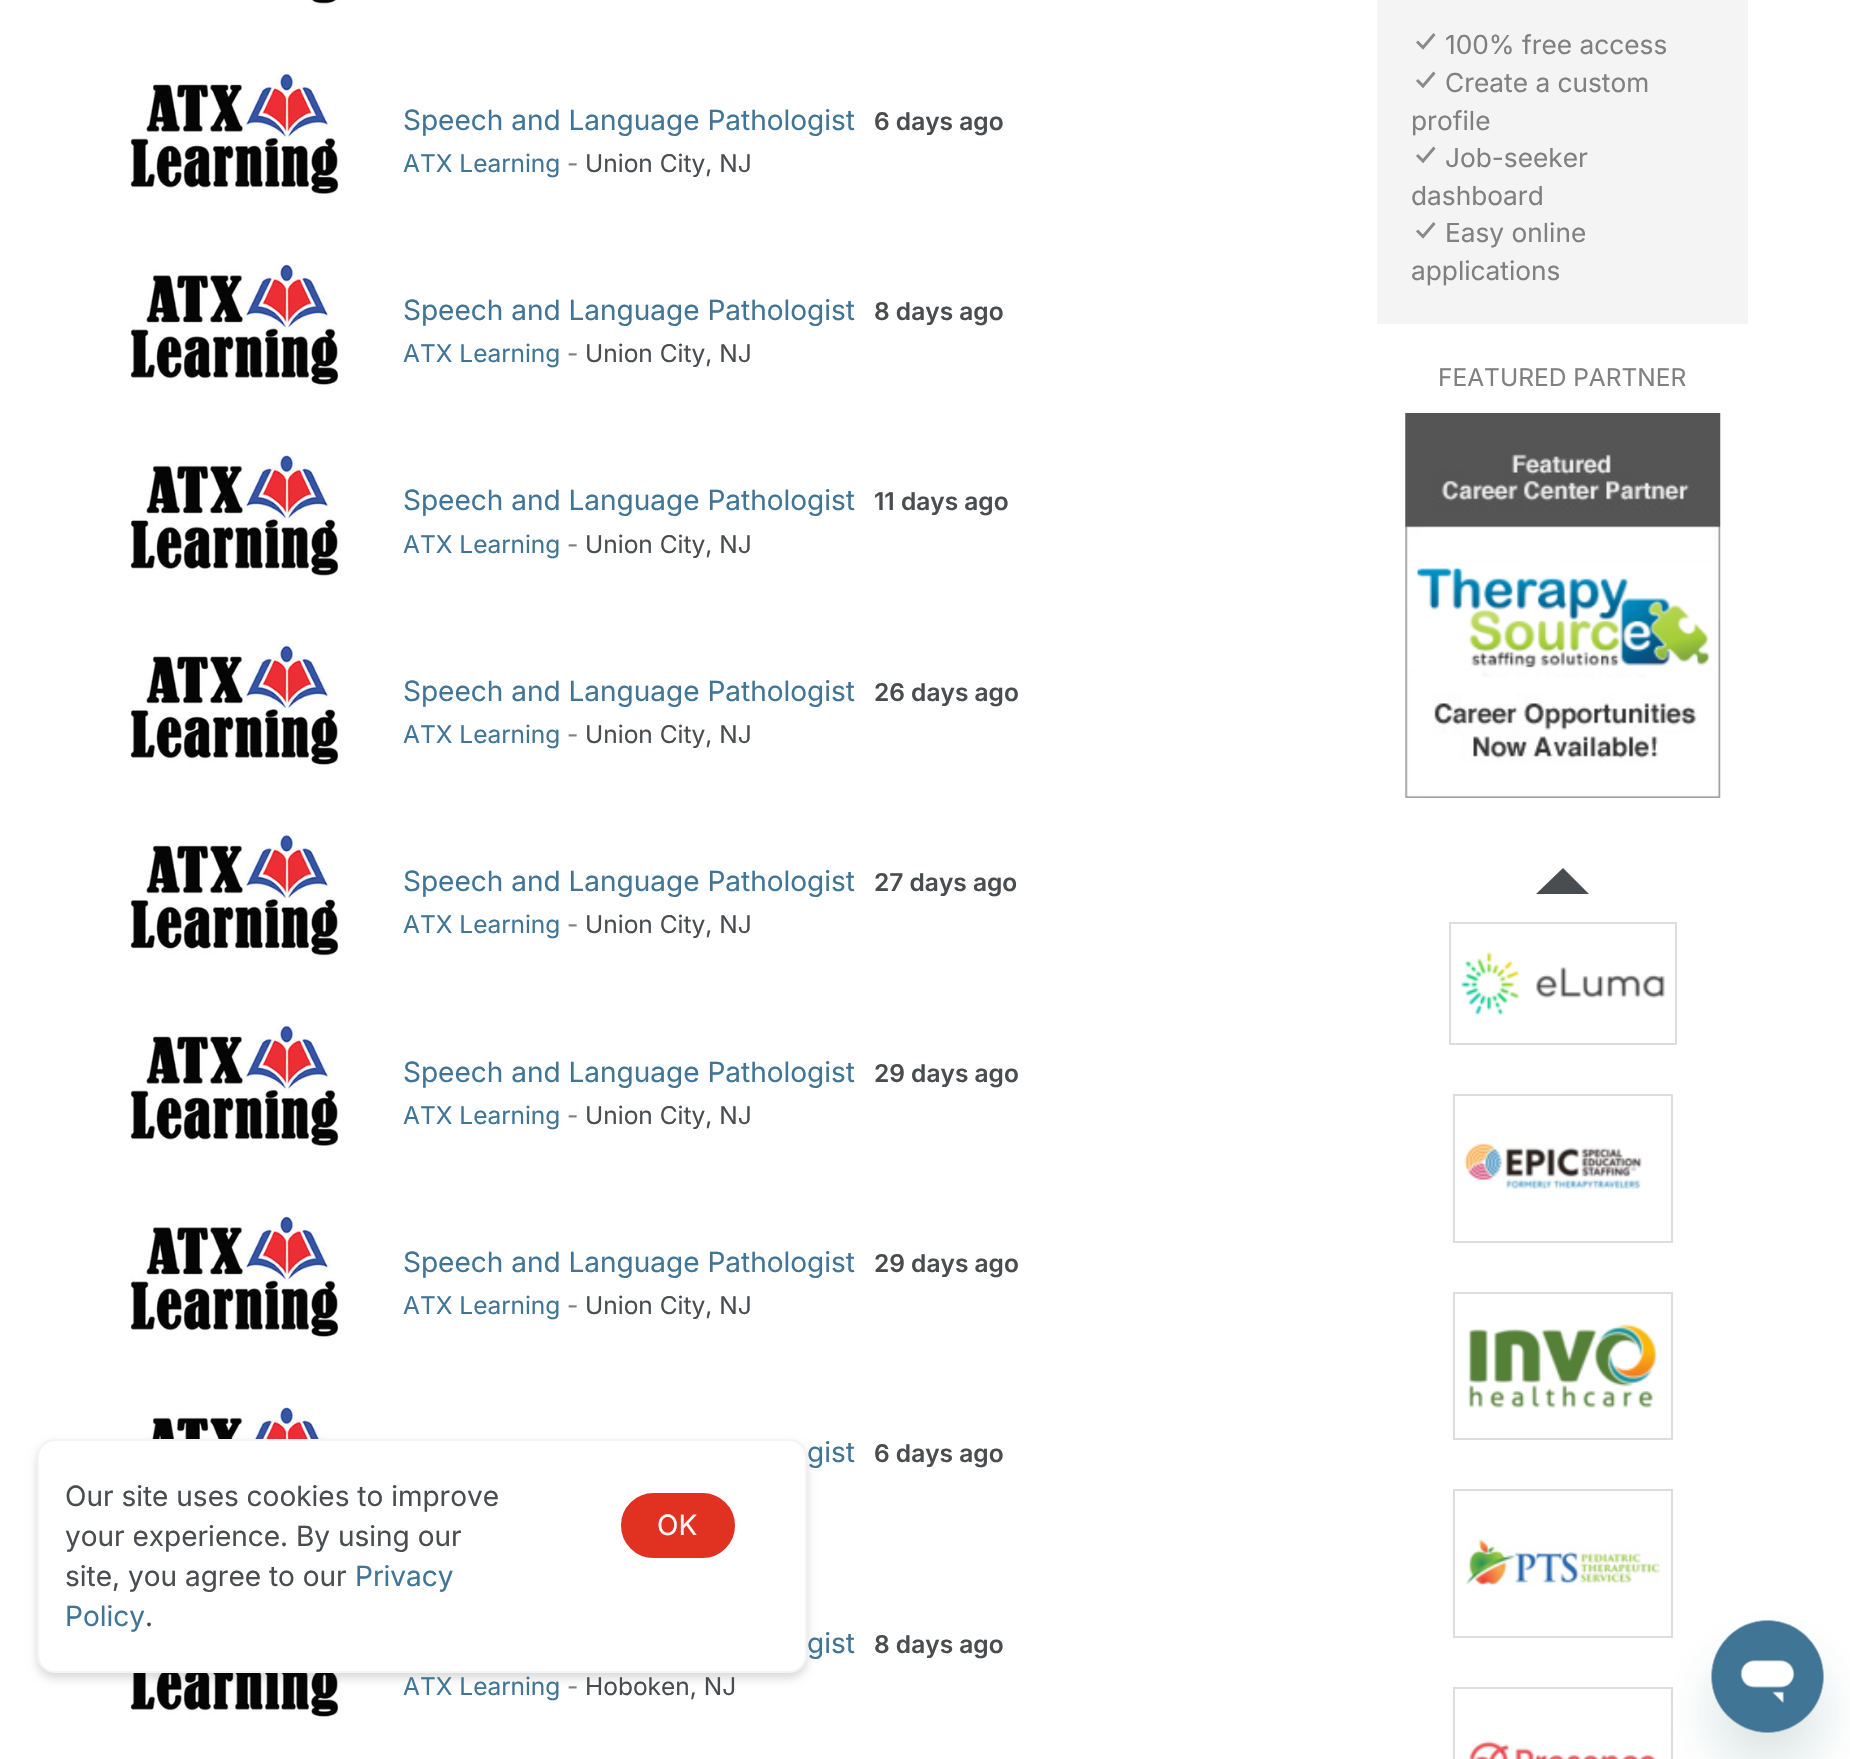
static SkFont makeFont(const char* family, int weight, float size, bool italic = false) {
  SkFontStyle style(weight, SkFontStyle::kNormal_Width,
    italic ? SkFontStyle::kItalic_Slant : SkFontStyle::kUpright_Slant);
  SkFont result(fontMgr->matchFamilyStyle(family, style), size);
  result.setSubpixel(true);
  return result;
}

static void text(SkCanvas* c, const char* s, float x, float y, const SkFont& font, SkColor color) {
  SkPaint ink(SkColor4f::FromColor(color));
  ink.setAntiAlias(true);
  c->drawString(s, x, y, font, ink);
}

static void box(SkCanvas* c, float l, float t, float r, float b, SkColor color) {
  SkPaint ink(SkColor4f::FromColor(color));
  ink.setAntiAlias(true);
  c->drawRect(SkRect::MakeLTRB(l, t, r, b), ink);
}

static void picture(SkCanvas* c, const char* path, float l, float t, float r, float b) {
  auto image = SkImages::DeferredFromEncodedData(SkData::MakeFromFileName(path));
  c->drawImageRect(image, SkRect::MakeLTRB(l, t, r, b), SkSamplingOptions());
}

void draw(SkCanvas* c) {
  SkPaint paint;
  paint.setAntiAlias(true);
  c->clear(0xffffffff);
  picture(c, "img_07.png", 130, 1407, 341, 1439);
  picture(c, "img_08.png", 130, 1673, 341, 1719);
  paint.setColor(0x26000000);
  paint.setMaskFilter(SkMaskFilter::MakeBlur(kNormal_SkBlurStyle, 5));
  c->drawRoundRect(SkRect::MakeLTRB(37, 1444, 807, 1678), 18, 18, paint);
  paint.setMaskFilter(nullptr);
  paint.setColor(0xffffffff);
  c->drawRoundRect(SkRect::MakeLTRB(38, 1440, 806, 1672), 17, 17, paint);
  paint.setStyle(SkPaint::kStroke_Style);
  paint.setStrokeWidth(2);
  paint.setColor(0xfff4f4f4);
  c->drawRoundRect(SkRect::MakeLTRB(38, 1440, 806, 1672), 17, 17, paint);
  SkFont face1 = makeFont("Inter", 400, 28);
  text(c, "Our site uses cookies to improve", 65, 1506, face1, 0xff4a4d50);
  text(c, "your experience. By using our", 65, 1546, face1, 0xff4a4d50);
  text(c, "site, you agree to our", 65, 1586, face1, 0xff4a4d50);
  text(c, "Privacy", 355, 1586, face1, 0xff407596);
  text(c, "Policy", 65, 1626, face1, 0xff407596);
  text(c, ".", 145, 1626, face1, 0xff4a4d50);
  paint.setStyle(SkPaint::kFill_Style);
  paint.setColor(0xffe13121);
  c->drawRoundRect(SkRect::MakeLTRB(622, 1494, 734, 1557), 31.5f, 31.5f, paint);
  paint.setStyle(SkPaint::kStroke_Style);
  c->drawRoundRect(SkRect::MakeLTRB(622, 1494, 734, 1557), 31.5f, 31.5f, paint);
  text(c, "OK", 657, 1535, face1, 0xffffffff);
  picture(c, "img_01.png", 310, 0, 341, 5);
  picture(c, "img_02.png", 130, 73, 339, 196);
  text(c, "Speech and Language Pathologist", 403, 130, face1, 0xff407596);
  SkFont face2 = makeFont("Inter", 600, 24.5f);
  text(c, "6 days ago", 874, 130, face2, 0xff4a4d50);
  SkFont face3 = makeFont("Inter", 400, 24.5f);
  text(c, "ATX Learning", 403, 172, face3, 0xff407596);
  text(c, "-", 567, 172, face3, 0xff808080);
  text(c, "Union City, NJ", 585, 172, face3, 0xff4a4d50);
  picture(c, "img_03.png", 130, 264, 341, 387);
  text(c, "Speech and Language Pathologist", 403, 320, face1, 0xff407596);
  text(c, "8 days ago", 874, 320, face2, 0xff4a4d50);
  text(c, "ATX Learning", 403, 362, face3, 0xff407596);
  text(c, "-", 567, 362, face3, 0xff808080);
  text(c, "Union City, NJ", 585, 362, face3, 0xff4a4d50);
  picture(c, "img_04.png", 130, 455, 341, 577);
  text(c, "Speech and Language Pathologist", 403, 510, face1, 0xff407596);
  text(c, "11 days ago", 874, 510, face2, 0xff4a4d50);
  text(c, "ATX Learning", 403, 553, face3, 0xff407596);
  text(c, "-", 567, 553, face3, 0xff808080);
  text(c, "Union City, NJ", 585, 553, face3, 0xff4a4d50);
  picture(c, "img_05.png", 130, 645, 341, 767);
  text(c, "Speech and Language Pathologist", 403, 701, face1, 0xff407596);
  text(c, "26 days ago", 874, 701, face2, 0xff4a4d50);
  text(c, "ATX Learning", 403, 743, face3, 0xff407596);
  text(c, "-", 567, 743, face3, 0xff808080);
  text(c, "Union City, NJ", 585, 743, face3, 0xff4a4d50);
  picture(c, "img_06.png", 130, 834, 339, 957);
  text(c, "Speech and Language Pathologist", 403, 891, face1, 0xff407596);
  text(c, "27 days ago", 874, 891, face2, 0xff4a4d50);
  text(c, "ATX Learning", 403, 933, face3, 0xff407596);
  text(c, "-", 567, 933, face3, 0xff808080);
  text(c, "Union City, NJ", 585, 933, face3, 0xff4a4d50);
  picture(c, "img_02.png", 130, 1025, 339, 1148);
  text(c, "Speech and Language Pathologist", 403, 1082, face1, 0xff407596);
  text(c, "29 days ago", 874, 1082, face2, 0xff4a4d50);
  text(c, "ATX Learning", 403, 1124, face3, 0xff407596);
  text(c, "-", 567, 1124, face3, 0xff808080);
  text(c, "Union City, NJ", 585, 1124, face3, 0xff4a4d50);
  picture(c, "img_03.png", 130, 1216, 341, 1339);
  text(c, "Speech and Language Pathologist", 403, 1272, face1, 0xff407596);
  text(c, "29 days ago", 874, 1272, face2, 0xff4a4d50);
  text(c, "ATX Learning", 403, 1314, face3, 0xff407596);
  text(c, "-", 567, 1314, face3, 0xff808080);
  text(c, "Union City, NJ", 585, 1314, face3, 0xff4a4d50);
  text(c, "gist", 807, 1462, face1, 0xff407596);
  text(c, "6 days ago", 874, 1462, face2, 0xff4a4d50);
  text(c, "gist", 807, 1653, face1, 0xff407596);
  text(c, "8 days ago", 874, 1653, face2, 0xff4a4d50);
  text(c, "ATX Learning", 403, 1695, face3, 0xff407596);
  text(c, "-", 567, 1695, face3, 0xff808080);
  text(c, "Hoboken, NJ", 585, 1695, face3, 0xff4a4d50);
  box(c, 1377, 0, 1748, 324, 0xfff4f4f4);
  paint.setStrokeWidth(2.9f);
  paint.setColor(0xff8a8a8d);
  c->drawPath(SkPathBuilder().moveTo(1417, 41.5f).lineTo(1423, 47.5f).lineTo(1434.5f, 34).moveTo(1417, 80).lineTo(1423, 86).lineTo(1434.5f, 72.5f).detach(), paint);
  SkFont face4 = makeFont("Inter", 400, 26.25f);
  text(c, "100% free access", 1445, 54, face4, 0xff808080);
  text(c, "Create a custom", 1445, 92, face4, 0xff808080);
  text(c, "profile", 1411, 130, face4, 0xff808080);
  c->drawPath(SkPathBuilder().moveTo(1417, 155).lineTo(1423, 161).lineTo(1434.5f, 147.5f).detach(), paint);
  text(c, "Job-seeker", 1445, 167, face4, 0xff808080);
  text(c, "dashboard", 1411, 205, face4, 0xff808080);
  c->drawPath(SkPathBuilder().moveTo(1417, 230.5f).lineTo(1423, 236.5f).lineTo(1434.5f, 223).detach(), paint);
  text(c, "Easy online", 1445, 242, face4, 0xff808080);
  text(c, "applications", 1411, 280, face4, 0xff808080);
  text(c, "FEATURED PARTNER", 1438, 386, face3, 0xff808080);
  picture(c, "img_09.png", 1405, 413, 1721, 798);
  paint.setStyle(SkPaint::kFill_Style);
  paint.setColor(0xff4a4d50);
  c->drawPath(SkPathBuilder().moveTo(1589, 894).lineTo(1536, 894).lineTo(1563, 868).close().detach(), paint);
  paint.setStyle(SkPaint::kStroke_Style);
  paint.setStrokeWidth(2);
  paint.setColor(0xffdddddd);
  c->drawRect(SkRect::MakeLTRB(1450, 923, 1676, 1044), paint);
  picture(c, "img_10.png", 1461, 951, 1665, 1016);
  c->drawRect(SkRect::MakeLTRB(1454, 1095, 1672, 1242), paint);
  picture(c, "img_11.png", 1464, 1142, 1642, 1189);
  c->drawRect(SkRect::MakeLTRB(1454, 1293, 1672, 1439), paint);
  picture(c, "img_12.png", 1468, 1324, 1658, 1408);
  c->drawRect(SkRect::MakeLTRB(1454, 1490, 1672, 1637), paint);
  picture(c, "img_13.png", 1466, 1539, 1661, 1586);
  c->drawRect(SkRect::MakeLTRB(1454, 1688, 1672, 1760), paint);
  picture(c, "img_14.png", 1469, 1741, 1656, 1759);
  paint.setStyle(SkPaint::kFill_Style);
  paint.setColor(0x2617494d);
  paint.setMaskFilter(SkMaskFilter::MakeBlur(kNormal_SkBlurStyle, 26));
  c->drawRoundRect(SkRect::MakeLTRB(1712, 1656, 1824, 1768), 56, 56, paint);
  paint.setMaskFilter(nullptr);
  picture(c, "img_15.png", 1711, 1620, 1824, 1733);
}
